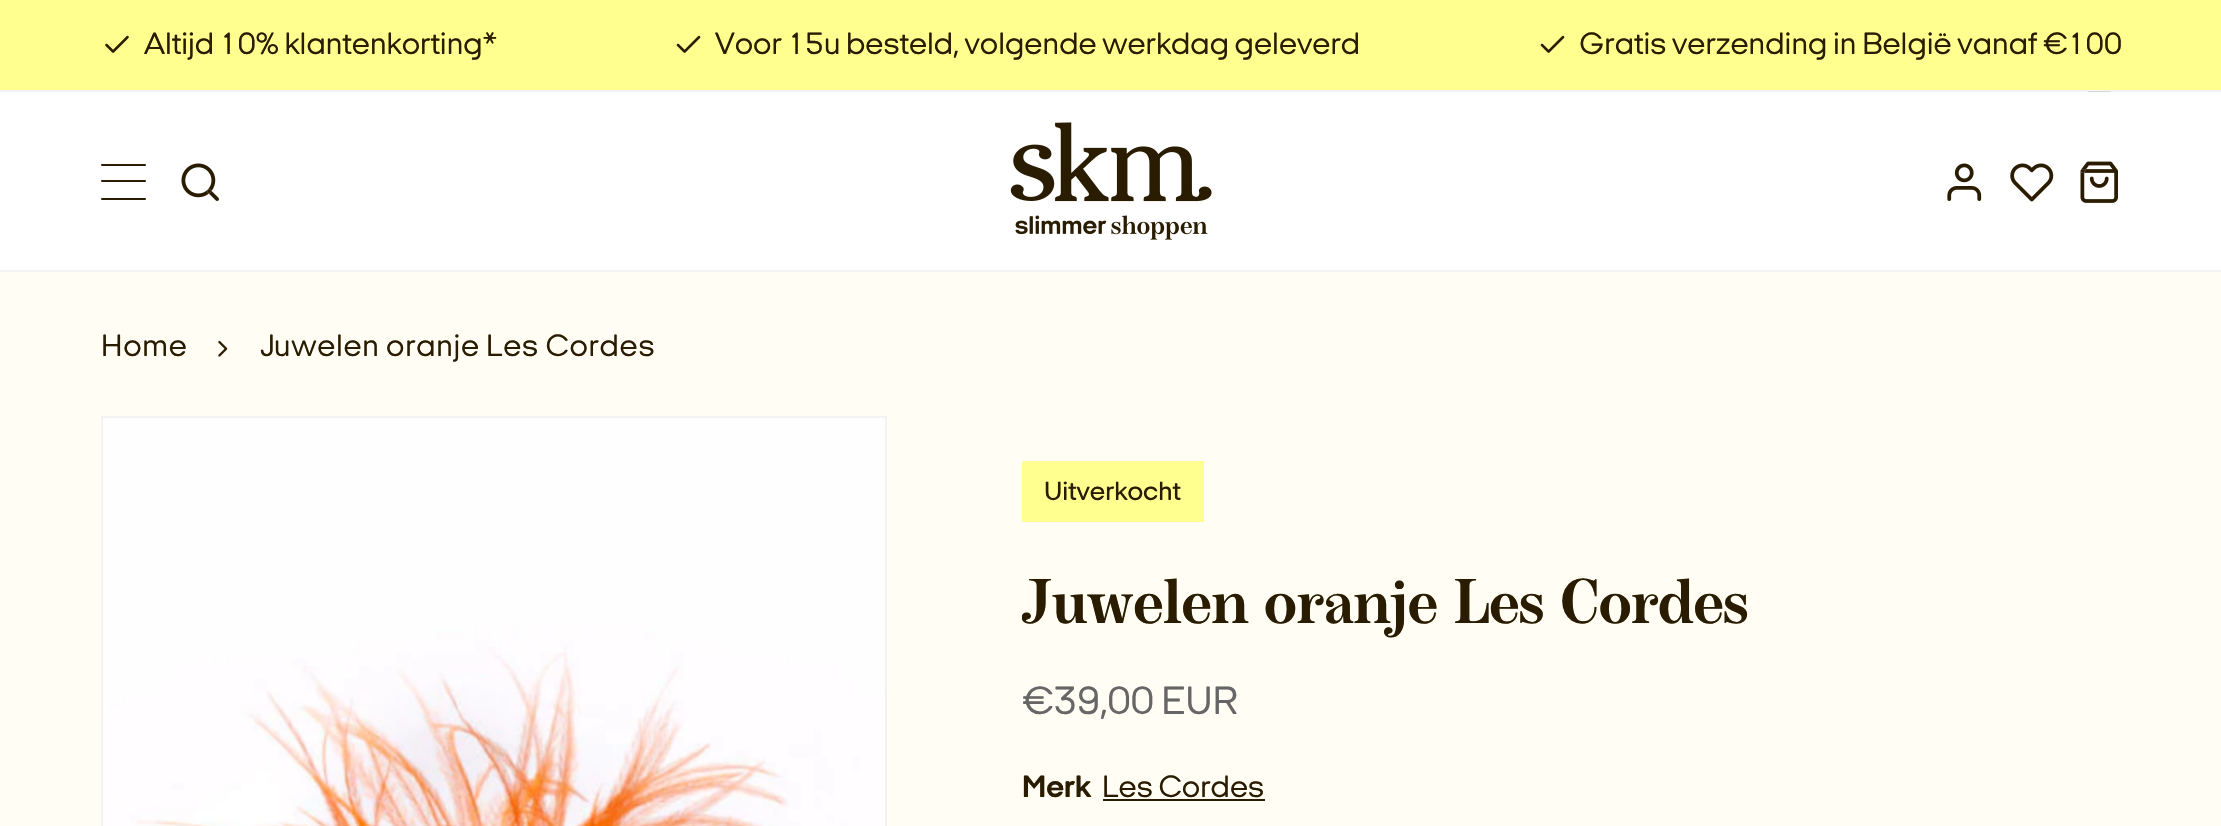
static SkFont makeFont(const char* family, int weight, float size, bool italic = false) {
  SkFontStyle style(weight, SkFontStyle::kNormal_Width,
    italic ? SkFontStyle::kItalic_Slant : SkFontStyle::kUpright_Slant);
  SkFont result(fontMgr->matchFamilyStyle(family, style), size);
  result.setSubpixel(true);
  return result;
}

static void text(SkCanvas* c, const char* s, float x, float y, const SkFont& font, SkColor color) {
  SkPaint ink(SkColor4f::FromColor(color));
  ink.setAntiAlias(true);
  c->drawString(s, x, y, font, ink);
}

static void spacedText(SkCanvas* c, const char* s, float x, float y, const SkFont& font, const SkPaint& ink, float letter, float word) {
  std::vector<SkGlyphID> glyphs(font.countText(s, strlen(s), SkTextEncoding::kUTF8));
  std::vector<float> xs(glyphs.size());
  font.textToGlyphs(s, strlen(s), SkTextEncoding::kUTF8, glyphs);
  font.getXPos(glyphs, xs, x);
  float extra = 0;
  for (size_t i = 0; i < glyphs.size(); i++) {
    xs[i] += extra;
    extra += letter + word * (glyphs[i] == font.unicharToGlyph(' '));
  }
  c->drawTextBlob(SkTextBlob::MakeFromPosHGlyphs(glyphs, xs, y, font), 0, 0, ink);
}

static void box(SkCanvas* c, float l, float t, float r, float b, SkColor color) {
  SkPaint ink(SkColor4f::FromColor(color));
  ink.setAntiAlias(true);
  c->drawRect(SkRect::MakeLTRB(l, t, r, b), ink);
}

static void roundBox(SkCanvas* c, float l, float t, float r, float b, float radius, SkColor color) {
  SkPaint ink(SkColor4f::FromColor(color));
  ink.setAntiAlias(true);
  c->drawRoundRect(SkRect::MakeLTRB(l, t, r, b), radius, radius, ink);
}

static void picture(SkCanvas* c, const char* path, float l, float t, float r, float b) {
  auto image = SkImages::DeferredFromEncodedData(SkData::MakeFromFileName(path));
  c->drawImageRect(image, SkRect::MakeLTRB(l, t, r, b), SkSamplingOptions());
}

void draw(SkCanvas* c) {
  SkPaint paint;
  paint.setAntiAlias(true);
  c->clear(0xfffffdf4);
  box(c, 0, 0, 2221, 90, 0xffffff90);
  picture(c, "img_01.png", 105, 35, 129, 53);
  SkFont face1 = makeFont("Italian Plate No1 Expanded", 400, 31.5f);
  text(c, "Altijd 10% klantenkorting*", 144, 54, face1, 0xff291c00);
  picture(c, "img_02.png", 676, 35, 701, 53);
  text(c, "Voor 15u besteld, volgende werkdag geleverd", 715, 54, face1, 0xff291c00);
  picture(c, "img_02.png", 1540, 35, 1565, 53);
  text(c, "Gratis verzending in België vanaf €100", 1579, 54, face1, 0xff291c00);
  box(c, 0, 90, 2221, 92, 0xfff2f3f5);
  picture(c, "img_03.png", 2087, 91, 2111, 92);
  box(c, 0, 92, 2221, 270, 0xffffffff);
  box(c, 0, 270, 2221, 272, 0xfff2f3f5);
  roundBox(c, 101, 164, 146, 166, 1, 0xff291c00);
  roundBox(c, 101, 180, 146, 182, 1, 0xff291c00);
  roundBox(c, 101, 198, 146, 200, 1, 0xff291c00);
  picture(c, "img_04.png", 181, 163, 219, 201);
  picture(c, "img_05.png", 1010, 122, 1212, 240);
  picture(c, "img_06.png", 1947, 163, 1982, 201);
  picture(c, "img_07.png", 2010, 163, 2054, 202);
  picture(c, "img_08.png", 2080, 161, 2118, 203);
  paint.setColor(0xff291c00);
  spacedText(c, "Home", 101, 356, face1, paint, 0.7f, 0);
  picture(c, "img_09.png", 218, 340, 228, 357);
  spacedText(c, "Juwelen oranje Les Cordes", 260, 356, face1, paint, 0.7f, 0);
  paint.setStyle(SkPaint::kStroke_Style);
  paint.setStrokeWidth(2);
  paint.setColor(0xfff2f3f5);
  c->drawRect(SkRect::MakeLTRB(102, 417, 886, 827), paint);
  picture(c, "img_10.png", 104, 419, 885, 826);
  box(c, 1022, 461, 1204, 522, 0xffffff90);
  SkFont face2 = makeFont("Italian Plate No1 Expanded", 500, 27);
  text(c, "Uitverkocht", 1044, 500, face2, 0xff291c00);
  c->save();
  c->clipRect(SkRect::MakeLTRB(1022, 416, 2122, 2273));
  SkFont face3 = makeFont("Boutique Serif", 500, 63);
  text(c, "Juwelen oranje Les Cordes", 1022, 623, face3, 0xff291c00);
  c->restore();
  SkFont face4 = makeFont("Italian Plate No1 Expanded", 400, 40.5f);
  text(c, "€39,00 EUR", 1022, 714, face4, 0xff666666);
  SkFont face5 = makeFont("Italian Plate No1 Expanded", 700, 31.5f);
  text(c, "Merk", 1022, 797, face5, 0xff291c00);
  text(c, "Les Cordes", 1102, 797, face1, 0xff291c00);
  box(c, 1103, 799, 1265, 801, 0xff291c00);
}
